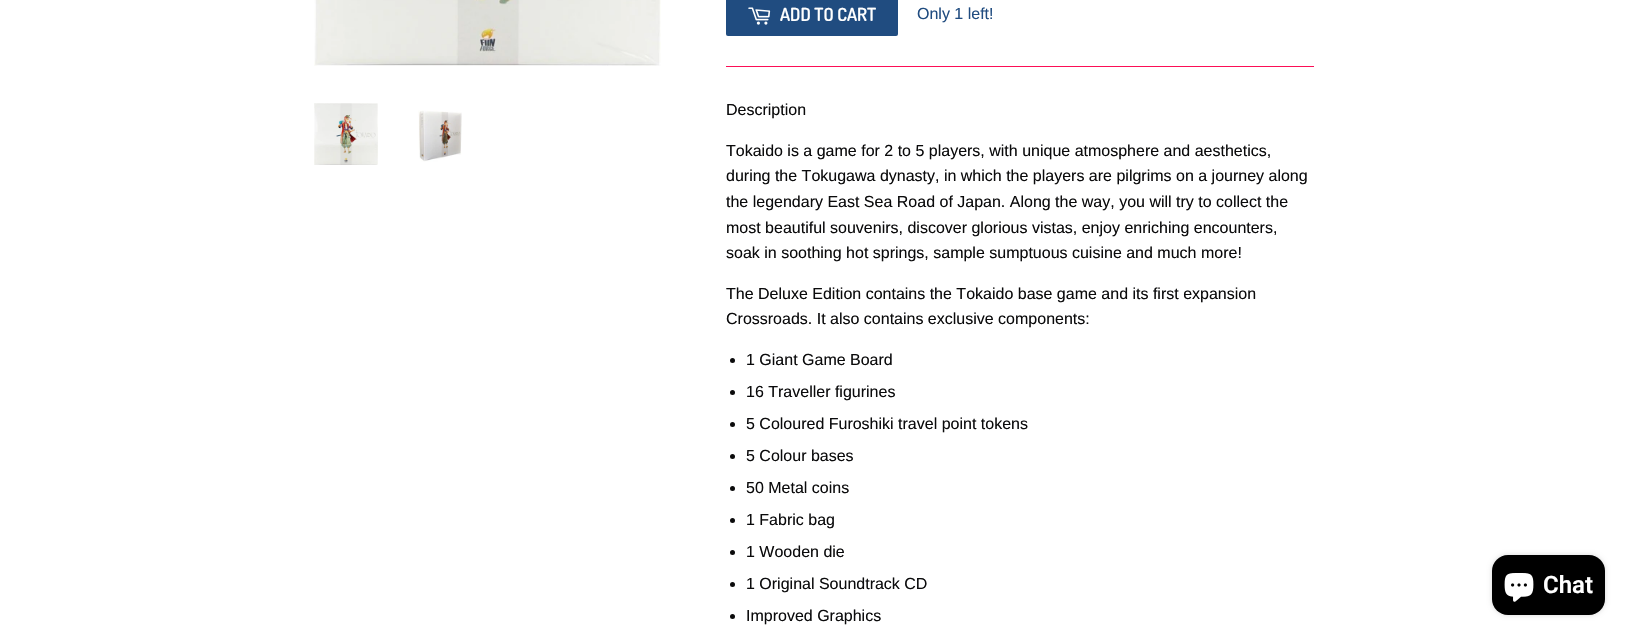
static SkFont makeFont(const char* family, int weight, float size, bool italic = false) {
  SkFontStyle style(weight, SkFontStyle::kNormal_Width,
    italic ? SkFontStyle::kItalic_Slant : SkFontStyle::kUpright_Slant);
  SkFont result(fontMgr->matchFamilyStyle(family, style), size);
  result.setSubpixel(true);
  return result;
}

static void text(SkCanvas* c, const char* s, float x, float y, const SkFont& font, SkColor color) {
  SkPaint ink(SkColor4f::FromColor(color));
  ink.setAntiAlias(true);
  c->drawString(s, x, y, font, ink);
}

static void box(SkCanvas* c, float l, float t, float r, float b, SkColor color) {
  SkPaint ink(SkColor4f::FromColor(color));
  ink.setAntiAlias(true);
  c->drawRect(SkRect::MakeLTRB(l, t, r, b), ink);
}

static void roundBox(SkCanvas* c, float l, float t, float r, float b, float radius, SkColor color) {
  SkPaint ink(SkColor4f::FromColor(color));
  ink.setAntiAlias(true);
  c->drawRoundRect(SkRect::MakeLTRB(l, t, r, b), radius, radius, ink);
}

static void picture(SkCanvas* c, const char* path, float l, float t, float r, float b) {
  auto image = SkImages::DeferredFromEncodedData(SkData::MakeFromFileName(path));
  c->drawImageRect(image, SkRect::MakeLTRB(l, t, r, b), SkSamplingOptions());
}

void draw(SkCanvas* c) {
  SkPaint paint;
  paint.setAntiAlias(true);
  c->clear(0xffffffff);
  picture(c, "img_01.png", 314, 0, 661, 66);
  picture(c, "img_02.png", 314, 103, 378, 165);
  picture(c, "img_03.png", 418, 110, 462, 162);
  roundBox(c, 726, -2, 898, 36, 2, 0xff204c80);
  picture(c, "img_04.png", 748, 7, 771, 25);
  SkFont face1 = makeFont("Dosis", 600, 18);
  text(c, "ADD TO CART", 780, 21, face1, 0xffffffff);
  SkFont face2 = makeFont("Liberation Sans", 400, 16);
  text(c, "Only 1 left!", 917, 19, face2, 0xff204c80);
  box(c, 726, 66, 1314, 67, 0xfffc0e56);
  text(c, "Description", 726, 115, face2, 0xff0b0b0c);
  text(c, "Tokaido is a game for 2 to 5 players, with unique atmosphere and aesthetics,", 726, 156, face2, 0xff0b0b0c);
  text(c, "during the Tokugawa dynasty, in which the players are pilgrims on a journey along", 726, 181, face2, 0xff0b0b0c);
  text(c, "the legendary East Sea Road of Japan. Along the way, you will try to collect the", 726, 207, face2, 0xff0b0b0c);
  text(c, "most beautiful souvenirs, discover glorious vistas, enjoy enriching encounters,", 726, 233, face2, 0xff0b0b0c);
  text(c, "soak in soothing hot springs, sample sumptuous cuisine and much more!", 726, 258, face2, 0xff0b0b0c);
  text(c, "The Deluxe Edition contains the Tokaido base game and its first expansion", 726, 299, face2, 0xff0b0b0c);
  text(c, "Crossroads. It also contains exclusive components:", 726, 324, face2, 0xff0b0b0c);
  paint.setColor(0xff0b0b0c);
  c->drawCircle(732.5f, 360.5f, 2.5f, paint);
  text(c, "1 Giant Game Board", 746, 365, face2, 0xff0b0b0c);
  c->drawCircle(732.5f, 392.5f, 2.5f, paint);
  text(c, "16 Traveller figurines", 746, 397, face2, 0xff0b0b0c);
  c->drawCircle(732.5f, 424.5f, 2.5f, paint);
  text(c, "5 Coloured Furoshiki travel point tokens", 746, 429, face2, 0xff0b0b0c);
  c->drawCircle(732.5f, 456.5f, 2.5f, paint);
  text(c, "5 Colour bases", 746, 461, face2, 0xff0b0b0c);
  c->drawCircle(732.5f, 488.5f, 2.5f, paint);
  text(c, "50 Metal coins", 746, 493, face2, 0xff0b0b0c);
  c->drawCircle(732.5f, 520.5f, 2.5f, paint);
  text(c, "1 Fabric bag", 746, 525, face2, 0xff0b0b0c);
  c->drawCircle(732.5f, 552.5f, 2.5f, paint);
  text(c, "1 Wooden die", 746, 557, face2, 0xff0b0b0c);
  c->drawCircle(732.5f, 584.5f, 2.5f, paint);
  text(c, "1 Original Soundtrack CD", 746, 589, face2, 0xff0b0b0c);
  c->drawCircle(732.5f, 616.5f, 2.5f, paint);
  text(c, "Improved Graphics", 746, 621, face2, 0xff0b0b0c);
  paint.setColor(0x26000000);
  paint.setMaskFilter(SkMaskFilter::MakeBlur(kNormal_SkBlurStyle, 2.5f));
  c->drawRoundRect(SkRect::MakeLTRB(1492, 555, 1605, 615), 16, 16, paint);
  paint.setMaskFilter(nullptr);
  roundBox(c, 1492, 555, 1605, 615, 16, 0xff000000);
  picture(c, "img_05.png", 1504, 573, 1534, 602);
  SkFont face3 = makeFont("Roboto", 600, 24);
  text(c, "Chat", 1543, 593, face3, 0xffffffff);
}
